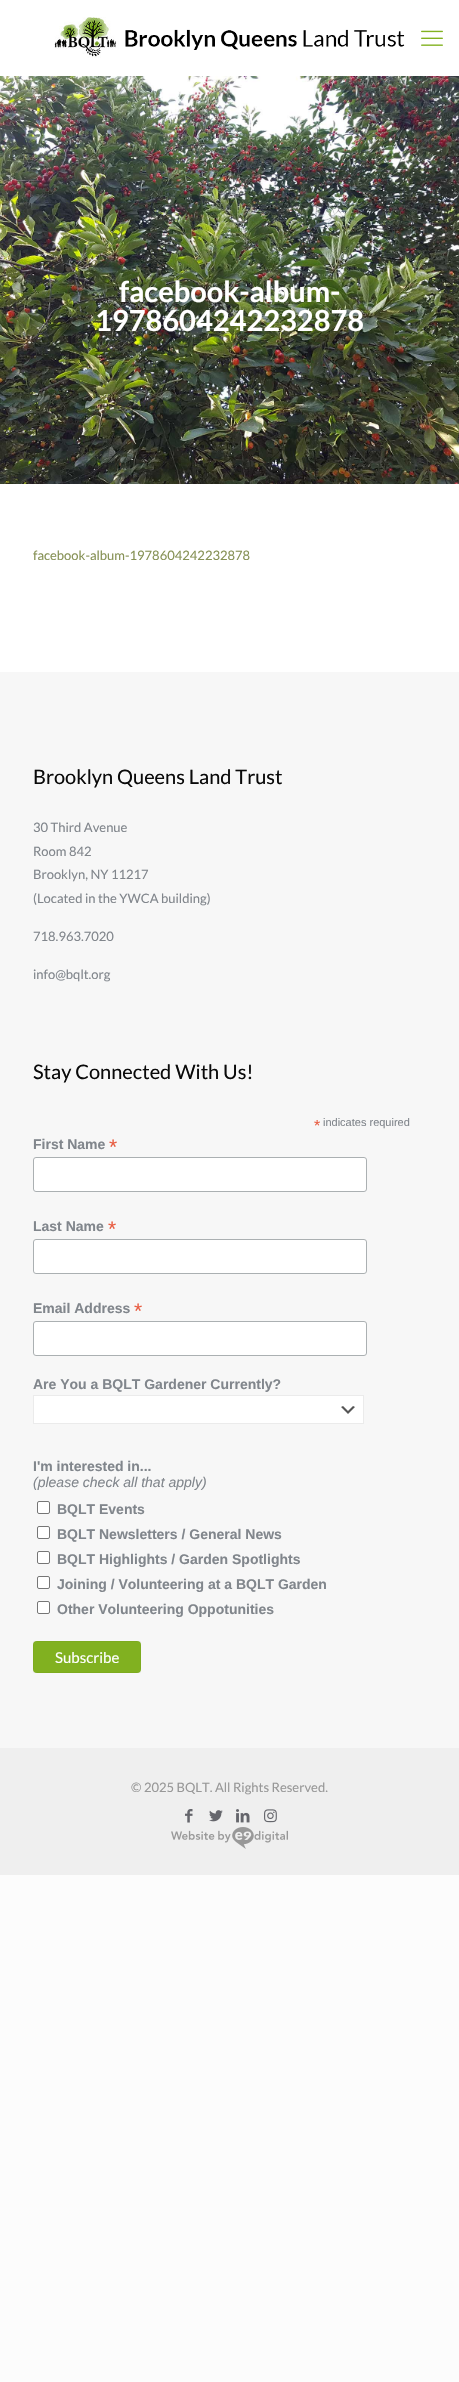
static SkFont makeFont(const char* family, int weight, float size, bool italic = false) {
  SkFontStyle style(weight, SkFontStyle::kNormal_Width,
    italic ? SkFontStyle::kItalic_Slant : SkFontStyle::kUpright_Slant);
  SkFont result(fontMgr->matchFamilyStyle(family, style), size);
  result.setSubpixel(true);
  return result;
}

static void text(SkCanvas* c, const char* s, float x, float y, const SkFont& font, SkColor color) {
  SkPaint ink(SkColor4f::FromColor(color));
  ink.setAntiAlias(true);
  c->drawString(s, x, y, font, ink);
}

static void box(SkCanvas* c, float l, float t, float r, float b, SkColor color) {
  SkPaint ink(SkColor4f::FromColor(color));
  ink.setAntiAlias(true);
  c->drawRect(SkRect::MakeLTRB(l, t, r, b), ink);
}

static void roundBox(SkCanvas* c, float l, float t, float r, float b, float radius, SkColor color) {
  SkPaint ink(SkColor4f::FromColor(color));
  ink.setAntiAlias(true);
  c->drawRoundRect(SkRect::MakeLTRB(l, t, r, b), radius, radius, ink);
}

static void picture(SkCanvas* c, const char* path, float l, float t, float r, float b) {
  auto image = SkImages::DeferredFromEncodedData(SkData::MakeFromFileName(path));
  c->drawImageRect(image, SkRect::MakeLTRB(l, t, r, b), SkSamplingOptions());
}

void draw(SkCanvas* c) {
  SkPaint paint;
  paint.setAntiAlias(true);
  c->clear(0xfffcfcfc);
  box(c, 0, 0, 459, 672, 0xffffffff);
  picture(c, "img_01.png", 54, 17, 405, 58);
  picture(c, "img_02.png", 421, 30, 443, 46);
  picture(c, "img_03.png", 0, 76, 459, 484);
  SkFont face1 = makeFont("Lato", 700, 29);
  text(c, "facebook-album-", 119, 302, face1, 0xffffffff);
  text(c, "1978604242232878", 95, 331, face1, 0xffffffff);
  SkFont face2 = makeFont("Lato", 400, 13);
  text(c, "facebook-album-1978604242232878", 33, 560, face2, 0xff879256);
  box(c, 0, 672, 459, 1748, 0xfff7f7f7);
  SkFont face3 = makeFont("Lato", 400, 20);
  text(c, "Brooklyn Queens Land Trust", 33, 784, face3, 0xff0a0a0a);
  text(c, "30 Third Avenue", 33, 832, face2, 0xff81868c);
  text(c, "Room 842", 33, 856, face2, 0xff81868c);
  text(c, "Brooklyn, NY 11217", 33, 879, face2, 0xff81868c);
  text(c, "(Located in the YWCA building)", 33, 903, face2, 0xff81868c);
  text(c, "718.963.7020", 33, 941, face2, 0xff81868c);
  text(c, "info@bqlt.org", 33, 979, face2, 0xff81868c);
  text(c, "Stay Connected With Us!", 33, 1079, face3, 0xff0a0a0a);
  SkFont face4 = makeFont("Liberation Sans", 400, 16);
  text(c, "*", 314, 1131, face4, 0xffe85c41);
  SkFont face5 = makeFont("Liberation Sans", 400, 11);
  text(c, "indicates required", 323, 1126, face5, 0xff81868c);
  SkFont face6 = makeFont("Liberation Sans", 700, 14);
  text(c, "First Name", 33, 1149, face6, 0xff81868c);
  SkFont face7 = makeFont("Liberation Sans", 400, 21);
  text(c, "*", 109, 1154, face7, 0xffe85c41);
  paint.setColor(0xffffffff);
  c->drawRoundRect(SkRect::MakeLTRB(33.5f, 1157.5f, 366.5f, 1191.5f), 2.5f, 2.5f, paint);
  paint.setStyle(SkPaint::kStroke_Style);
  paint.setStrokeWidth(1);
  paint.setColor(0xffabb0b2);
  c->drawRoundRect(SkRect::MakeLTRB(33.5f, 1157.5f, 366.5f, 1191.5f), 2.5f, 2.5f, paint);
  text(c, "Last Name", 33, 1231, face6, 0xff81868c);
  text(c, "*", 108, 1236, face7, 0xffe85c41);
  paint.setStyle(SkPaint::kFill_Style);
  paint.setColor(0xffffffff);
  c->drawRoundRect(SkRect::MakeLTRB(33.5f, 1239.5f, 366.5f, 1273.5f), 2.5f, 2.5f, paint);
  paint.setStyle(SkPaint::kStroke_Style);
  paint.setColor(0xffabb0b2);
  c->drawRoundRect(SkRect::MakeLTRB(33.5f, 1239.5f, 366.5f, 1273.5f), 2.5f, 2.5f, paint);
  text(c, "Email Address", 33, 1313, face6, 0xff81868c);
  text(c, "*", 134, 1318, face7, 0xffe85c41);
  paint.setStyle(SkPaint::kFill_Style);
  paint.setColor(0xffffffff);
  c->drawRoundRect(SkRect::MakeLTRB(33.5f, 1321.5f, 366.5f, 1355.5f), 2.5f, 2.5f, paint);
  paint.setStyle(SkPaint::kStroke_Style);
  paint.setColor(0xffabb0b2);
  c->drawRoundRect(SkRect::MakeLTRB(33.5f, 1321.5f, 366.5f, 1355.5f), 2.5f, 2.5f, paint);
  text(c, "Are You a BQLT Gardener Currently?", 33, 1389, face6, 0xff81868c);
  box(c, 34, 1396, 363, 1423, 0xffffffff);
  picture(c, "img_04.png", 341, 1406, 355, 1414);
  paint.setColor(0xffebebeb);
  c->drawRect(SkRect::MakeLTRB(33.5f, 1395.5f, 363.5f, 1423.5f), paint);
  text(c, "I'm interested in...", 33, 1471, face6, 0xff81868c);
  SkFont face8 = makeFont("Liberation Sans", 400, 14, true);
  text(c, "(please check all that apply)", 33, 1487, face8, 0xff81868c);
  paint.setStyle(SkPaint::kFill_Style);
  paint.setColor(0xffffffff);
  c->drawRoundRect(SkRect::MakeLTRB(37.5f, 1501.5f, 49.5f, 1513.5f), 1.5f, 1.5f, paint);
  paint.setStyle(SkPaint::kStroke_Style);
  paint.setColor(0xff767676);
  c->drawRoundRect(SkRect::MakeLTRB(37.5f, 1501.5f, 49.5f, 1513.5f), 1.5f, 1.5f, paint);
  text(c, "BQLT Events", 57, 1514, face6, 0xff81868c);
  paint.setStyle(SkPaint::kFill_Style);
  paint.setColor(0xffffffff);
  c->drawRoundRect(SkRect::MakeLTRB(37.5f, 1526.5f, 49.5f, 1538.5f), 1.5f, 1.5f, paint);
  paint.setStyle(SkPaint::kStroke_Style);
  paint.setColor(0xff767676);
  c->drawRoundRect(SkRect::MakeLTRB(37.5f, 1526.5f, 49.5f, 1538.5f), 1.5f, 1.5f, paint);
  text(c, "BQLT Newsletters / General News", 57, 1539, face6, 0xff81868c);
  paint.setStyle(SkPaint::kFill_Style);
  paint.setColor(0xffffffff);
  c->drawRoundRect(SkRect::MakeLTRB(37.5f, 1551.5f, 49.5f, 1563.5f), 1.5f, 1.5f, paint);
  paint.setStyle(SkPaint::kStroke_Style);
  paint.setColor(0xff767676);
  c->drawRoundRect(SkRect::MakeLTRB(37.5f, 1551.5f, 49.5f, 1563.5f), 1.5f, 1.5f, paint);
  text(c, "BQLT Highlights / Garden Spotlights", 57, 1564, face6, 0xff81868c);
  paint.setStyle(SkPaint::kFill_Style);
  paint.setColor(0xffffffff);
  c->drawRoundRect(SkRect::MakeLTRB(37.5f, 1576.5f, 49.5f, 1588.5f), 1.5f, 1.5f, paint);
  paint.setStyle(SkPaint::kStroke_Style);
  paint.setColor(0xff767676);
  c->drawRoundRect(SkRect::MakeLTRB(37.5f, 1576.5f, 49.5f, 1588.5f), 1.5f, 1.5f, paint);
  text(c, "Joining / Volunteering at a BQLT Garden", 57, 1589, face6, 0xff81868c);
  paint.setStyle(SkPaint::kFill_Style);
  paint.setColor(0xffffffff);
  c->drawRoundRect(SkRect::MakeLTRB(37.5f, 1601.5f, 49.5f, 1613.5f), 1.5f, 1.5f, paint);
  paint.setStyle(SkPaint::kStroke_Style);
  paint.setColor(0xff767676);
  c->drawRoundRect(SkRect::MakeLTRB(37.5f, 1601.5f, 49.5f, 1613.5f), 1.5f, 1.5f, paint);
  text(c, "Other Volunteering Oppotunities", 57, 1614, face6, 0xff81868c);
  roundBox(c, 33, 1641, 141, 1673, 4, 0xff81b120);
  paint.setColor(0x08000000);
  c->drawRect(SkRect::MakeLTRB(33.5f, 1641.5f, 140.5f, 1672.5f), paint);
  SkFont face9 = makeFont("Lato", 400, 15);
  text(c, "Subscribe", 55, 1663, face9, 0xffffffff);
  box(c, 0, 1748, 459, 1875, 0xffefefef);
  text(c, "© 2025 BQLT. All Rights Reserved.", 131, 1792, face2, 0xff989898);
  picture(c, "img_05.png", 185, 1809, 193, 1823);
  picture(c, "img_06.png", 209, 1810, 223, 1822);
  picture(c, "img_07.png", 236, 1809, 250, 1823);
  picture(c, "img_08.png", 264, 1809, 277, 1823);
  picture(c, "img_09.png", 171, 1827, 288, 1849);
}
